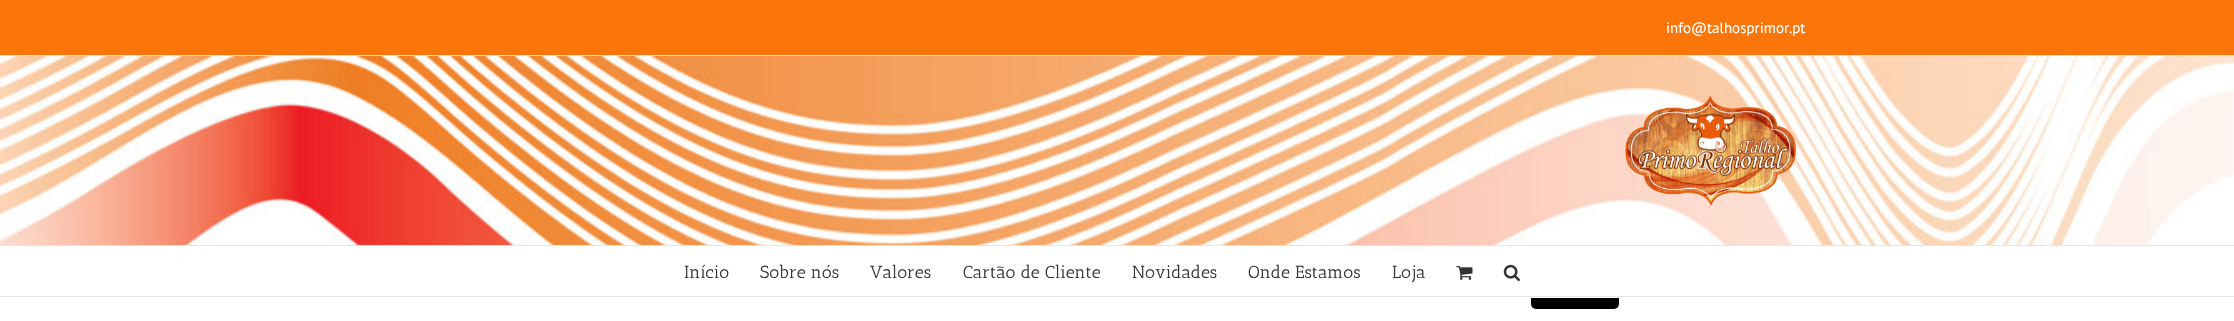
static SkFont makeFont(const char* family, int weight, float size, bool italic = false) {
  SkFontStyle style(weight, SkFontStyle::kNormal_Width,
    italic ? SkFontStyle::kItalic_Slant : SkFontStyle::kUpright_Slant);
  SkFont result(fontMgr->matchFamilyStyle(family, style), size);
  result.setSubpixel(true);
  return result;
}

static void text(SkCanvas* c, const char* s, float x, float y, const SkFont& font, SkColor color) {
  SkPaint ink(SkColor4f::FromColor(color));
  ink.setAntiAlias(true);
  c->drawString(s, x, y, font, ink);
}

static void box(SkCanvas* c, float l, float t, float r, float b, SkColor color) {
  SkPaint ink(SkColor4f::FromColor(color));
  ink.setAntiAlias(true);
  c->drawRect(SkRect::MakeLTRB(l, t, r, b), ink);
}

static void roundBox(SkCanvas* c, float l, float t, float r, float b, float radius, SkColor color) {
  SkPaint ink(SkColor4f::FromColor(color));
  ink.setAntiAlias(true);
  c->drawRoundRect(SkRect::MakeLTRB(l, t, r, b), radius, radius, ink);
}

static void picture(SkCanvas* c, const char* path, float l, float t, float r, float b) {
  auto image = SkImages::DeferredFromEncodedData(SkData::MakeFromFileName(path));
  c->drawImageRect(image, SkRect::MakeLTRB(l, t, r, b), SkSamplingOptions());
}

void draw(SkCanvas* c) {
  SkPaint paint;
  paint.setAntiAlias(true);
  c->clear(0xffffffff);
  box(c, 0, 0, 2234, 55, 0xfffa760a);
  box(c, 0, 55, 2234, 56, 0xffe5e5e5);
  SkFont face1 = makeFont("PT Sans", 400, 15);
  text(c, "info@talhosprimor.pt", 1666, 33, face1, 0xffffffff);
  picture(c, "img_01.png", 0, 56, 2234, 245);
  box(c, 0, 245, 2234, 246, 0xffe5e5e5);
  picture(c, "img_02.png", 1625, 95, 1797, 206);
  roundBox(c, 1531, 273, 1619, 309, 5, 0xff000000);
  box(c, 1531, 273, 1619, 298, 0xffffffff);
  box(c, 0, 296, 2234, 297, 0xffe5e5e5);
  SkFont face2 = makeFont("Antic Slab", 400, 17.5f);
  text(c, "Início", 684, 278, face2, 0xff333333);
  text(c, "Sobre nós", 760, 278, face2, 0xff333333);
  text(c, "Valores", 870, 278, face2, 0xff333333);
  text(c, "Cartão de Cliente", 963, 278, face2, 0xff333333);
  text(c, "Novidades", 1132, 278, face2, 0xff333333);
  text(c, "Onde Estamos", 1248, 278, face2, 0xff333333);
  text(c, "Loja", 1392, 278, face2, 0xff333333);
  picture(c, "img_03.png", 1456, 266, 1473, 280);
  picture(c, "img_04.png", 1503, 264, 1520, 282);
}
